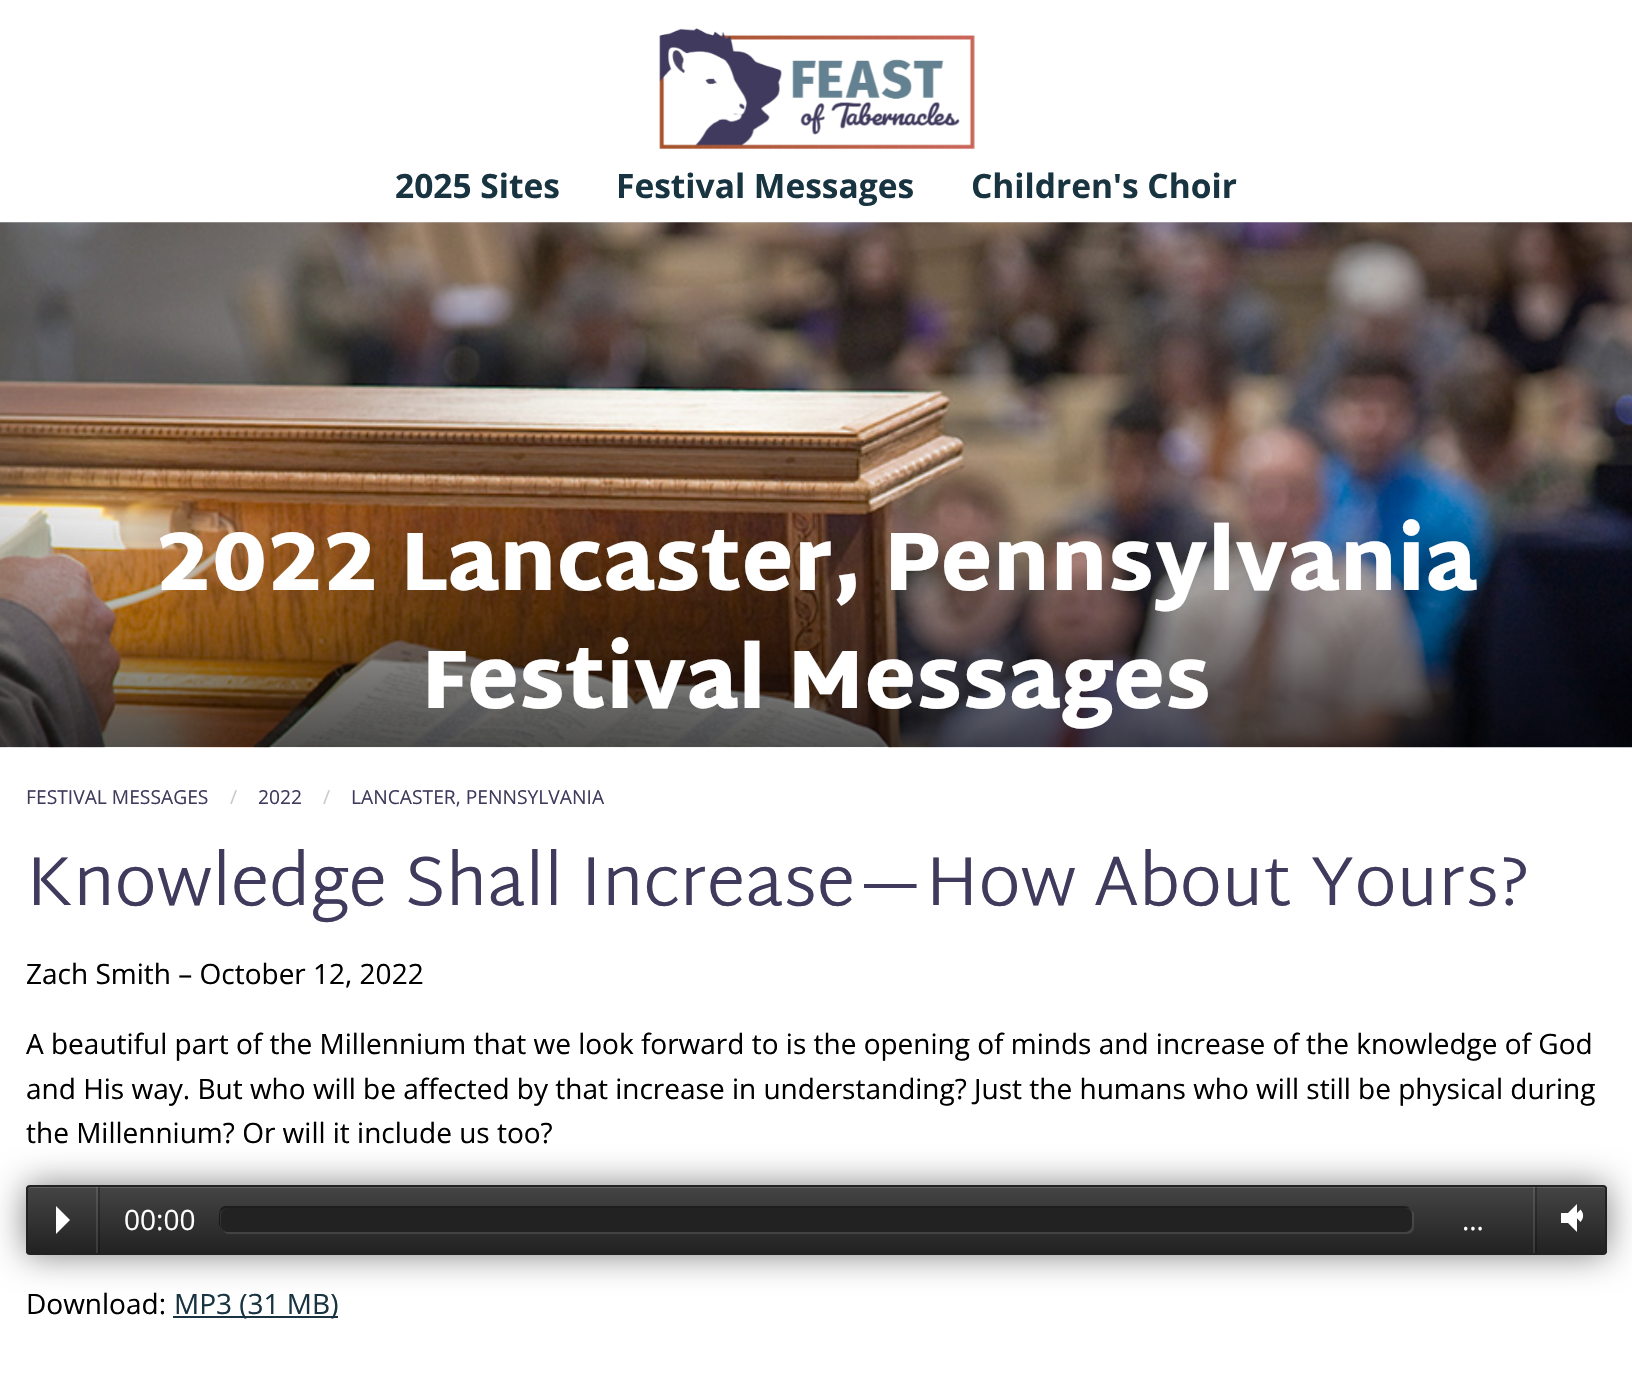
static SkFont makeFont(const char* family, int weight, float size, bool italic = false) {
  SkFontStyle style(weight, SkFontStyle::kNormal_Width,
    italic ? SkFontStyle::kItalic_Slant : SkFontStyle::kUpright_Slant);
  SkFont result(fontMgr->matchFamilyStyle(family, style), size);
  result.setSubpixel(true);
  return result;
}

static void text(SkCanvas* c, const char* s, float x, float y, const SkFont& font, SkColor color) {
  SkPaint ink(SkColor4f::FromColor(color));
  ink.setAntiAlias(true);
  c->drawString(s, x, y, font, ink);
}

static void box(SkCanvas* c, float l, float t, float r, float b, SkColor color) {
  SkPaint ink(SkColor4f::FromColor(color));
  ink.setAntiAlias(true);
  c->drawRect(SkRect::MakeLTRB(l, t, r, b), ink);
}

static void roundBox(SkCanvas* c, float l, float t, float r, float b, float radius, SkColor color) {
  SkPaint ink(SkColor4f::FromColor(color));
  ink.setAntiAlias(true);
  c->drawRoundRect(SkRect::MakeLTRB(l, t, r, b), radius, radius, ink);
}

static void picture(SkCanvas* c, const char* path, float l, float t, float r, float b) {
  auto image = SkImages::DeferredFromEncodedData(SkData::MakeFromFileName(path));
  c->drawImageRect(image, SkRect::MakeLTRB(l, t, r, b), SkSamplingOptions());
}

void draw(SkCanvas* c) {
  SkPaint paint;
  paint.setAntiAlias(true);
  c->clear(0xffffffff);
  picture(c, "img_01.png", 659, 28, 975, 150);
  SkFont face1 = makeFont("Open Sans", 700, 33.5f);
  text(c, "2025 Sites", 395, 198, face1, 0xff193441);
  text(c, "Festival Messages", 616, 198, face1, 0xff193441);
  text(c, "Children's Choir", 971, 198, face1, 0xff193441);
  picture(c, "img_02.png", 0, 222, 1632, 748);
  SkFont face2 = makeFont("Martel Sans", 900, 84);
  text(c, "2022 Lancaster, Pennsylvania", 156, 590, face2, 0xffffffff);
  text(c, "Festival Messages", 421, 708, face2, 0xffffffff);
  SkFont face3 = makeFont("Open Sans", 400, 19.25f);
  text(c, "FESTIVAL MESSAGES", 26, 804, face3, 0xff403b5d);
  text(c, "/", 230, 804, face3, 0xffcacaca);
  text(c, "2022", 258, 804, face3, 0xff403b5d);
  text(c, "/", 323, 804, face3, 0xffcacaca);
  text(c, "LANCASTER, PENNSYLVANIA", 351, 804, face3, 0xff403b5d);
  SkFont face4 = makeFont("Martel Sans", 300, 70);
  text(c, "Knowledge Shall Increase—How About Yours?", 26, 905, face4, 0xff403b5d);
  SkFont face5 = makeFont("Open Sans", 400, 28);
  text(c, "Zach Smith – October 12, 2022", 26, 984, face5, 0xff000000);
  text(c, "A beautiful part of the Millennium that we look forward to is the opening of minds and increase of the knowledge of God", 26, 1054, face5, 0xff000000);
  text(c, "and His way. But who will be affected by that increase in understanding? Just the humans who will still be physical during", 26, 1099, face5, 0xff000000);
  text(c, "the Millennium? Or will it include us too?", 26, 1143, face5, 0xff000000);
  paint.setColor(0x80000000);
  paint.setMaskFilter(SkMaskFilter::MakeBlur(kNormal_SkBlurStyle, 17.5f));
  c->drawRoundRect(SkRect::MakeLTRB(26, 1185, 1607, 1255), 4, 4, paint);
  paint.setMaskFilter(nullptr);
  c->save();
  c->clipPath(SkPathBuilder().moveTo(30, 1185).lineTo(1603, 1185).cubicTo(1605, 1185, 1607, 1187, 1607, 1189).lineTo(1607, 1251).cubicTo(1607, 1253, 1605, 1255, 1603, 1255).lineTo(30, 1255).cubicTo(28, 1255, 26, 1253, 26, 1251).lineTo(26, 1189).cubicTo(26, 1187, 28, 1185, 30, 1185).close().detach(), true);
  {
    const SkColor colors[] = {0xff444444, 0xff222222};
    const float stops[] = {0, 1};
    const SkPoint ends[] = {{816, 1187}, {816, 1253}};
    paint.setShader(SkGradientShader::MakeLinear(ends, colors, stops, 2, SkTileMode::kClamp));
    paint.setAlpha(255);
  }
  c->drawRect(SkRect::MakeLTRB(26, 1187, 1607, 1253), paint);
  c->restore();
  paint.setShader(nullptr);
  paint.setColor(0xff606060);
  c->drawPath(SkPathBuilder().moveTo(30, 1188).lineTo(1603, 1188).cubicTo(1604, 1188, 1605, 1189, 1605, 1190).lineTo(1605, 1189).cubicTo(1605, 1188, 1604, 1187, 1603, 1187).lineTo(30, 1187).cubicTo(29, 1187, 28, 1188, 28, 1189).lineTo(28, 1190).cubicTo(28, 1189, 29, 1188, 30, 1188).close().detach(), paint);
  paint.setStyle(SkPaint::kStroke_Style);
  paint.setStrokeWidth(2);
  paint.setColor(0xff222222);
  c->drawRoundRect(SkRect::MakeLTRB(27, 1186, 1606, 1254), 3, 3, paint);
  box(c, 96, 1187, 98, 1253, 0x1affffff);
  paint.setStyle(SkPaint::kFill_Style);
  paint.setColor(0xffffffff);
  c->drawPath(SkPathBuilder().moveTo(56, 1234).lineTo(56, 1206).lineTo(70, 1220).close().detach(), paint);
  box(c, 98, 1187, 100, 1253, 0x40000000);
  text(c, "00:00", 124, 1230, face5, 0xffffffff);
  paint.setColor(0x1affffff);
  c->drawPath(SkPathBuilder().moveTo(223, 1230).cubicTo(224, 1232, 226, 1234, 229, 1234).lineTo(1407, 1234).cubicTo(1411, 1234, 1414, 1231, 1414, 1227).lineTo(1414, 1216).cubicTo(1414, 1213, 1413, 1211, 1411, 1210).cubicTo(1412, 1211, 1412, 1213, 1412, 1214).lineTo(1412, 1225).cubicTo(1412, 1229, 1409, 1232, 1405, 1232).lineTo(228, 1232).cubicTo(226, 1232, 224, 1231, 223, 1230).close().detach(), paint);
  paint.setColor(0x80000000);
  c->drawPath(SkPathBuilder().moveTo(226, 1206).cubicTo(219, 1206, 219, 1213, 219, 1218).cubicTo(219, 1222, 218, 1225, 221, 1228).lineTo(220, 1225).lineTo(220, 1214).cubicTo(220, 1211, 224, 1208, 228, 1208).lineTo(1405, 1208).cubicTo(1407, 1208, 1409, 1208, 1410, 1209).cubicTo(1409, 1207, 1407, 1206, 1404, 1206).close().detach(), paint);
  roundBox(c, 221, 1208, 1412, 1232, 7, 0xff222222);
  box(c, 1533, 1187, 1535, 1253, 0x1affffff);
  text(c, "…", 1462, 1230, face5, 0xffffffff);
  box(c, 1535, 1187, 1537, 1253, 0x40000000);
  box(c, 1561, 1213, 1568, 1223, 0xffffffff);
  paint.setColor(0xffffffff);
  c->drawPath(SkPathBuilder(SkPathFillType::kEvenOdd).moveTo(1580.5f, 1209.5f).cubicTo(1584, 1213, 1584, 1218.5f, 1580.5f, 1222).lineTo(1574.5f, 1215.5f).close().moveTo(1575.5f, 1214.5f).cubicTo(1576, 1215, 1576, 1216.5f, 1575.5f, 1217).lineTo(1574.5f, 1215.5f).close().detach(), paint);
  c->drawPath(SkPathBuilder().moveTo(1577, 1204).lineTo(1577, 1232).lineTo(1563, 1218).close().detach(), paint);
  text(c, "Download:", 26, 1314, face5, 0xff000000);
  box(c, 173, 1316, 338, 1318, 0xff193441);
  text(c, "MP3 (31 MB)", 174, 1314, face5, 0xff193441);
}
